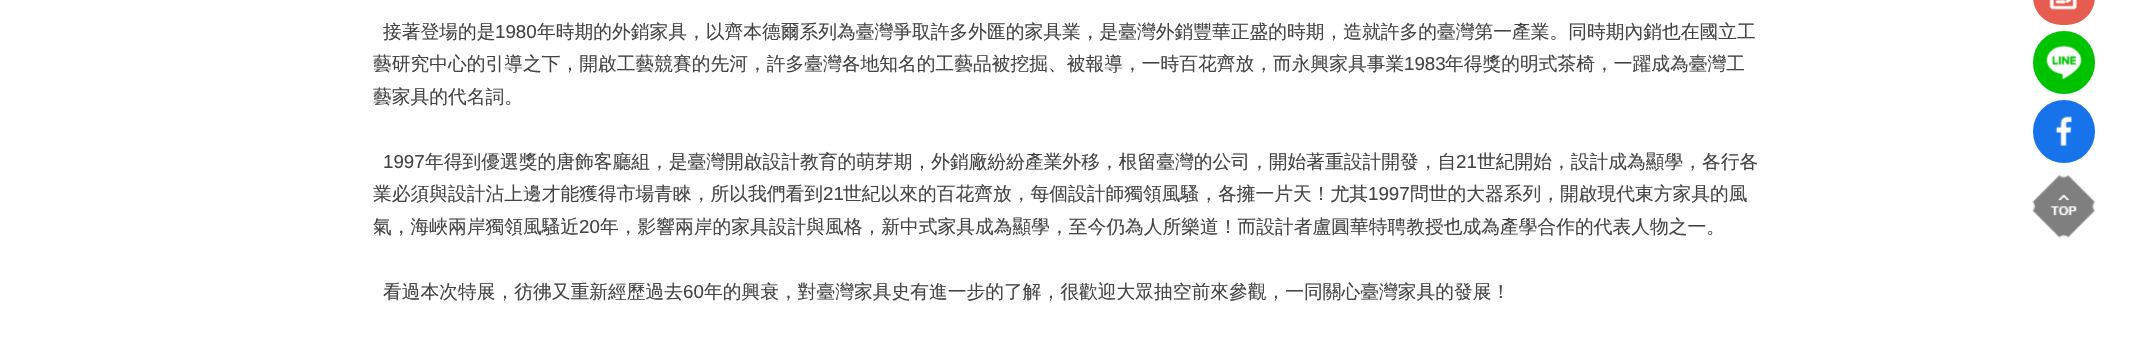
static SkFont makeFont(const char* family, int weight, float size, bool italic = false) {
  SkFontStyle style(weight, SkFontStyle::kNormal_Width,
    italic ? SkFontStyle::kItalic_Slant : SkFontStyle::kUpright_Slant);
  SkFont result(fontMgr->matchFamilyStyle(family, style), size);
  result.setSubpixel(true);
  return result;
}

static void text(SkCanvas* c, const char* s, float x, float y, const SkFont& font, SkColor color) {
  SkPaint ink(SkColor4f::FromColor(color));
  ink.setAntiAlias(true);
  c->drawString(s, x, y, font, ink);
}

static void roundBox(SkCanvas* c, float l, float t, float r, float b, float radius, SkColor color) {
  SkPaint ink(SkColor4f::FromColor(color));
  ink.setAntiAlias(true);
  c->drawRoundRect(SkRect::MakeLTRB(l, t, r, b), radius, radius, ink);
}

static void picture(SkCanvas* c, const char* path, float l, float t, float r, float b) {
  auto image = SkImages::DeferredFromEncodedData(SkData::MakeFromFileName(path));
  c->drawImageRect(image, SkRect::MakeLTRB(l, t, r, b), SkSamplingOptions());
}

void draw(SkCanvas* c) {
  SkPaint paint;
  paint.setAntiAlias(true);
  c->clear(0xffffffff);
  SkFont face1 = makeFont("WenQuanYi Zen Hei", 500, 18.75f);
  text(c, "接著登場的是", 383, 38, face1, 0xff444444);
  SkFont face2 = makeFont("Liberation Sans", 400, 18.75f);
  text(c, "1980", 495, 38, face2, 0xff444444);
  text(c, "年時期的外銷家具，以齊本德爾系列為臺灣爭取許多外匯的家具業，是臺灣外銷豐華正盛的時期，造就許多的臺灣第一產業。同時期內銷也在國立工", 537, 38, face1, 0xff444444);
  text(c, "藝研究中心的引導之下，開啟工藝競賽的先河，許多臺灣各地知名的工藝品被挖掘、被報導，一時百花齊放，而永興家具事業", 373, 70, face1, 0xff444444);
  text(c, "1983", 1404, 70, face2, 0xff444444);
  text(c, "年得獎的明式茶椅，一躍成為臺灣工", 1445, 70, face1, 0xff444444);
  text(c, "藝家具的代名詞。", 373, 103, face1, 0xff444444);
  text(c, "1997", 383, 168, face2, 0xff444444);
  text(c, "年得到優選獎的唐飾客廳組，是臺灣開啟設計教育的萌芽期，外銷廠紛紛產業外移，根留臺灣的公司，開始著重設計開發，自", 425, 168, face1, 0xff444444);
  text(c, "21", 1456, 168, face2, 0xff444444);
  text(c, "世紀開始，設計成為顯學，各行各", 1477, 168, face1, 0xff444444);
  text(c, "業必須與設計沾上邊才能獲得市場青睞，所以我們看到", 373, 200, face1, 0xff444444);
  text(c, "21", 823, 200, face2, 0xff444444);
  text(c, "世紀以來的百花齊放，每個設計師獨領風騷，各擁一片天！尤其", 843, 200, face1, 0xff444444);
  text(c, "1997", 1368, 200, face2, 0xff444444);
  text(c, "問世的大器系列，開啟現代東方家具的風", 1410, 200, face1, 0xff444444);
  text(c, "氣，海峽兩岸獨領風騷近", 373, 233, face1, 0xff444444);
  text(c, "20", 579, 233, face2, 0xff444444);
  text(c, "年，影響兩岸的家具設計與風格，新中式家具成為顯學，至今仍為人所樂道！而設計者盧圓華特聘教授也成為產學合作的代表人物之一。", 600, 233, face1, 0xff444444);
  text(c, "看過本次特展，彷彿又重新經歷過去", 383, 298, face1, 0xff444444);
  text(c, "60", 683, 298, face2, 0xff444444);
  text(c, "年的興衰，對臺灣家具史有進一步的了解，很歡迎大眾抽空前來參觀，一同關心臺灣家具的發展！", 704, 298, face1, 0xff444444);
  roundBox(c, 2033, -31, 2095, 25, 31, 0xffe65c4f);
  picture(c, "img_01.png", 2049, 0, 2077, 10);
  roundBox(c, 2033, 31, 2095, 94, 31, 0xff00c300);
  picture(c, "img_02.png", 2046, 45, 2082, 80);
  roundBox(c, 2033, 100, 2095, 163, 31, 0xff1773ea);
  picture(c, "img_03.png", 2055, 116, 2072, 146);
  picture(c, "img_04.png", 2032, 175, 2095, 238);
}
